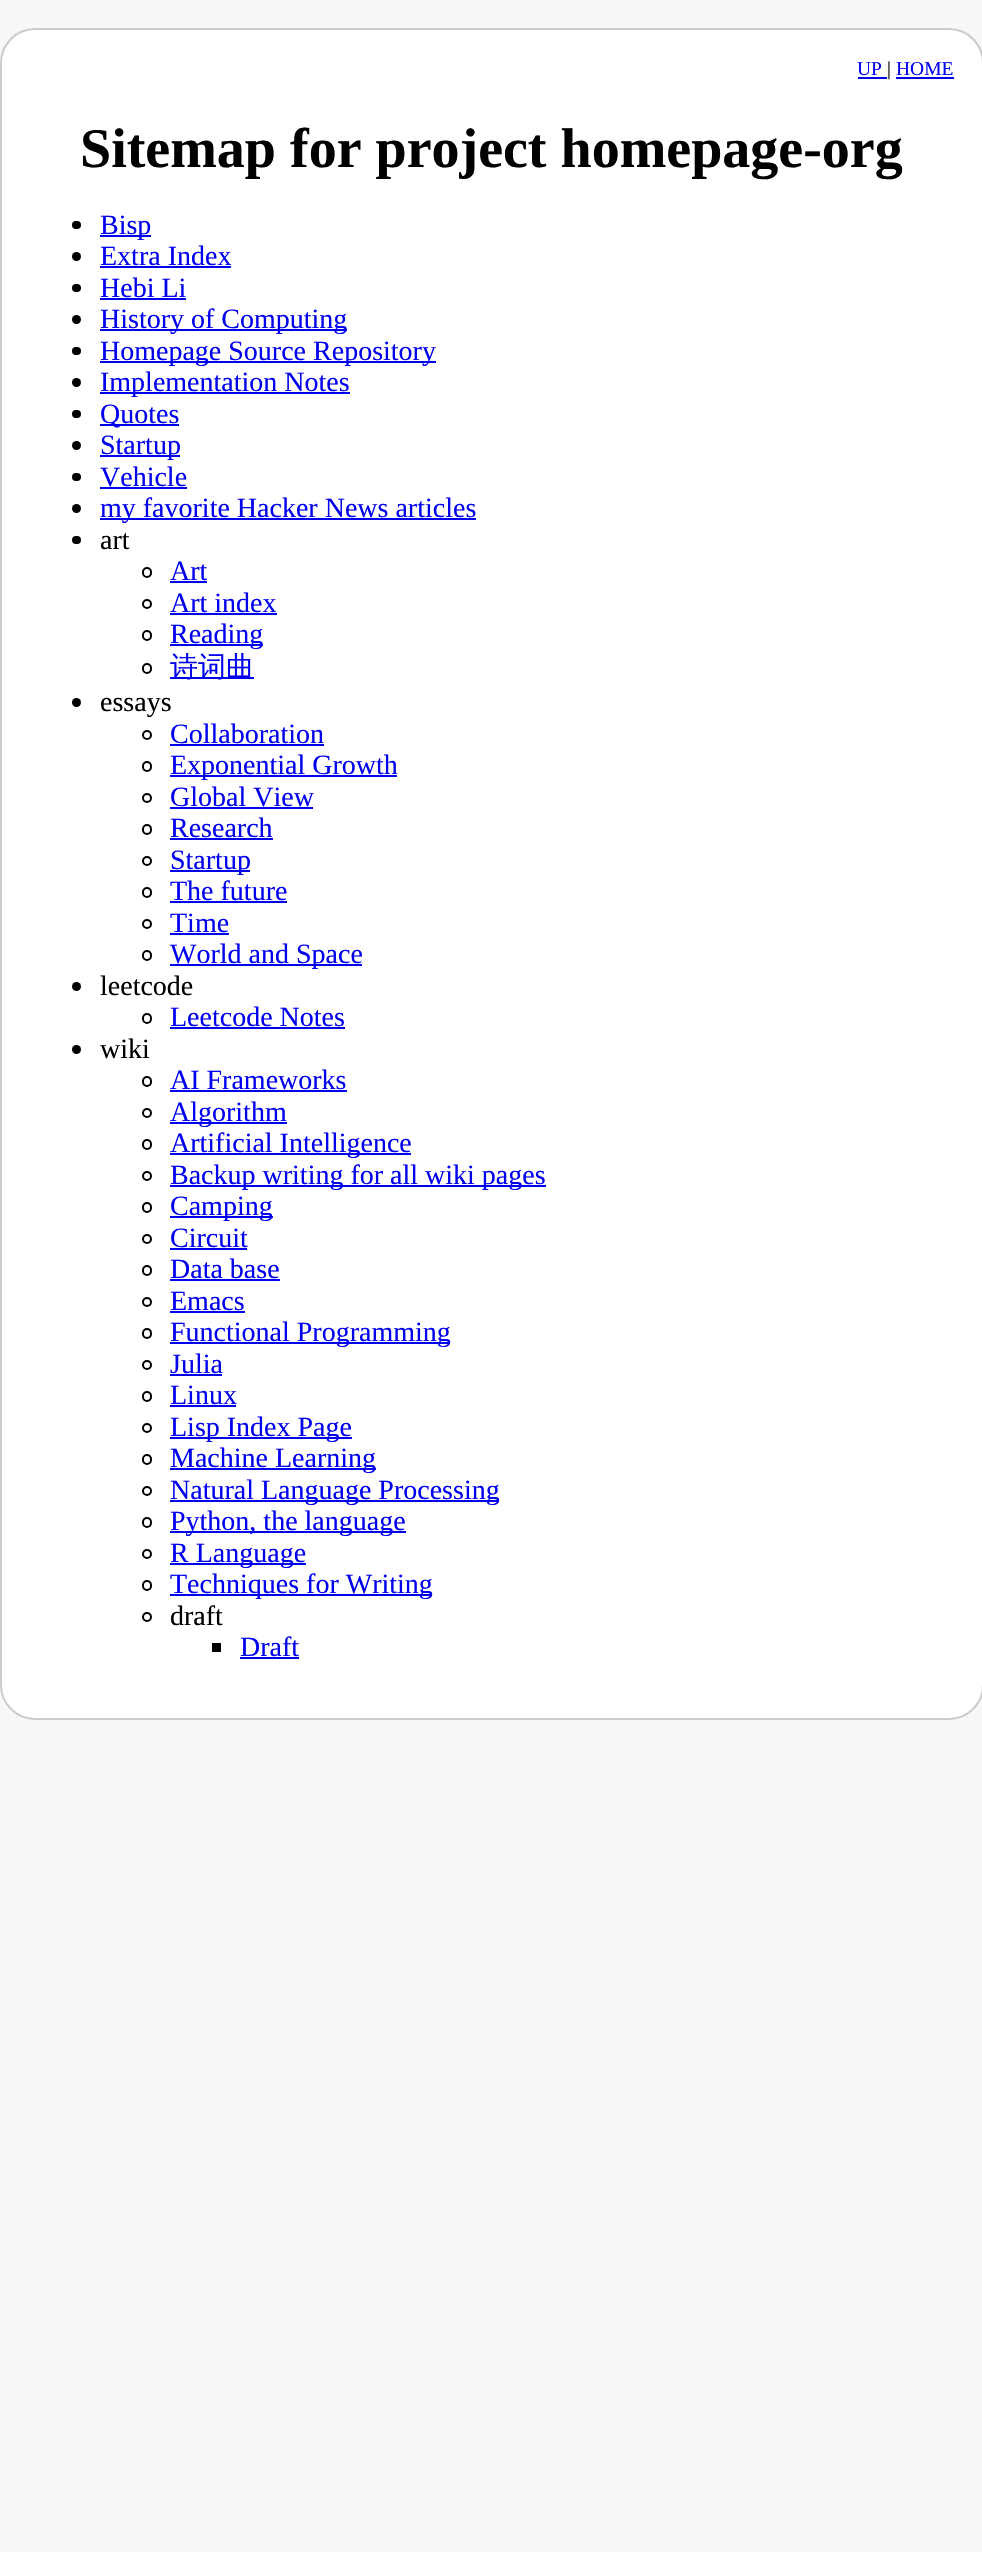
static SkFont makeFont(const char* family, int weight, float size, bool italic = false) {
  SkFontStyle style(weight, SkFontStyle::kNormal_Width,
    italic ? SkFontStyle::kItalic_Slant : SkFontStyle::kUpright_Slant);
  SkFont result(fontMgr->matchFamilyStyle(family, style), size);
  result.setSubpixel(true);
  return result;
}

static void text(SkCanvas* c, const char* s, float x, float y, const SkFont& font, SkColor color) {
  SkPaint ink(SkColor4f::FromColor(color));
  ink.setAntiAlias(true);
  c->drawString(s, x, y, font, ink);
}

static void box(SkCanvas* c, float l, float t, float r, float b, SkColor color) {
  SkPaint ink(SkColor4f::FromColor(color));
  ink.setAntiAlias(true);
  c->drawRect(SkRect::MakeLTRB(l, t, r, b), ink);
}

static void roundBox(SkCanvas* c, float l, float t, float r, float b, float radius, SkColor color) {
  SkPaint ink(SkColor4f::FromColor(color));
  ink.setAntiAlias(true);
  c->drawRoundRect(SkRect::MakeLTRB(l, t, r, b), radius, radius, ink);
}

void draw(SkCanvas* c) {
  SkPaint paint;
  paint.setAntiAlias(true);
  c->clear(0xfff8f8f8);
  paint.setColor(0xffffffff);
  c->drawRoundRect(SkRect::MakeLTRB(1, 29, 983, 1719), 34, 34, paint);
  paint.setStyle(SkPaint::kStroke_Style);
  paint.setStrokeWidth(2);
  paint.setColor(0xffcccccc);
  c->drawRoundRect(SkRect::MakeLTRB(1, 29, 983, 1719), 34, 34, paint);
  SkFont face1 = makeFont("Liberation Serif", 400, 19.5f);
  text(c, "UP", 857, 75, face1, 0xff0000ee);
  box(c, 858, 77, 887, 79, 0xff0000ee);
  text(c, "|", 887, 75, face1, 0xff000000);
  text(c, "HOME", 896, 75, face1, 0xff0000ee);
  box(c, 896, 77, 954, 79, 0xff0000ee);
  SkFont face2 = makeFont("Liberation Serif", 700, 56);
  text(c, "Sitemap for project homepage-org", 80, 167, face2, 0xff000000);
  roundBox(c, 72, 221, 81, 229, 4, 0xff000000);
  box(c, 100, 235, 151, 237, 0xff0000ee);
  SkFont face3 = makeFont("Liberation Serif", 400, 28);
  text(c, "Bisp", 100, 234, face3, 0xff0000ee);
  paint.setStyle(SkPaint::kFill_Style);
  paint.setColor(0xff000000);
  c->drawCircle(76.5f, 256.5f, 4.5f, paint);
  text(c, "Extra Index", 100, 265, face3, 0xff0000ee);
  box(c, 100, 266, 231, 268, 0xff0000ee);
  roundBox(c, 72, 284, 81, 292, 4, 0xff000000);
  text(c, "Hebi Li", 100, 297, face3, 0xff0000ee);
  box(c, 100, 298, 186, 300, 0xff0000ee);
  c->drawCircle(76.5f, 319.5f, 4.5f, paint);
  box(c, 100, 329, 347, 331, 0xff0000ee);
  text(c, "History of Computing", 100, 328, face3, 0xff0000ee);
  roundBox(c, 72, 347, 81, 355, 4, 0xff000000);
  box(c, 100, 361, 436, 363, 0xff0000ee);
  text(c, "Homepage Source Repository", 100, 360, face3, 0xff0000ee);
  c->drawCircle(76.5f, 382.5f, 4.5f, paint);
  box(c, 100, 392, 350, 394, 0xff0000ee);
  text(c, "Implementation Notes", 100, 391, face3, 0xff0000ee);
  roundBox(c, 72, 410, 81, 418, 4, 0xff000000);
  box(c, 100, 424, 179, 426, 0xff0000ee);
  text(c, "Quotes", 100, 423, face3, 0xff0000ee);
  c->drawCircle(76.5f, 445.5f, 4.5f, paint);
  box(c, 100, 455, 180, 457, 0xff0000ee);
  text(c, "Startup", 100, 454, face3, 0xff0000ee);
  roundBox(c, 72, 473, 81, 481, 4, 0xff000000);
  text(c, "Vehicle", 100, 486, face3, 0xff0000ee);
  box(c, 100, 487, 187, 489, 0xff0000ee);
  c->drawCircle(76.5f, 508.5f, 4.5f, paint);
  box(c, 100, 518, 476, 520, 0xff0000ee);
  text(c, "my favorite Hacker News articles", 100, 517, face3, 0xff0000ee);
  roundBox(c, 72, 536, 81, 544, 4, 0xff000000);
  text(c, "art", 100, 549, face3, 0xff000000);
  paint.setStyle(SkPaint::kStroke_Style);
  c->drawRoundRect(SkRect::MakeLTRB(143, 568, 151, 577), 4, 4, paint);
  text(c, "Art", 170, 580, face3, 0xff0000ee);
  box(c, 170, 581, 207, 583, 0xff0000ee);
  c->drawCircle(147, 604, 4, paint);
  text(c, "Art index", 170, 612, face3, 0xff0000ee);
  box(c, 170, 613, 277, 615, 0xff0000ee);
  c->drawRoundRect(SkRect::MakeLTRB(143, 631, 151, 640), 4, 4, paint);
  box(c, 170, 644, 263, 646, 0xff0000ee);
  text(c, "Reading", 170, 643, face3, 0xff0000ee);
  c->drawRoundRect(SkRect::MakeLTRB(143, 664, 151, 673), 4, 4, paint);
  box(c, 170, 677, 254, 679, 0xff0000ee);
  SkFont face4 = makeFont("WenQuanYi Zen Hei", 500, 28);
  text(c, "诗词曲", 170, 676, face4, 0xff0000ee);
  paint.setStyle(SkPaint::kFill_Style);
  c->drawCircle(76.5f, 702.5f, 4.5f, paint);
  text(c, "essays", 100, 711, face3, 0xff000000);
  paint.setStyle(SkPaint::kStroke_Style);
  c->drawCircle(147, 735, 4, paint);
  text(c, "Collaboration", 170, 743, face3, 0xff0000ee);
  box(c, 170, 744, 324, 746, 0xff0000ee);
  c->drawRoundRect(SkRect::MakeLTRB(143, 762, 151, 771), 4, 4, paint);
  box(c, 170, 775, 397, 777, 0xff0000ee);
  text(c, "Exponential Growth", 170, 774, face3, 0xff0000ee);
  c->drawCircle(147, 798, 4, paint);
  text(c, "Global View", 170, 806, face3, 0xff0000ee);
  box(c, 170, 807, 313, 809, 0xff0000ee);
  c->drawRoundRect(SkRect::MakeLTRB(143, 825, 151, 834), 4, 4, paint);
  text(c, "Research", 170, 837, face3, 0xff0000ee);
  box(c, 170, 838, 273, 840, 0xff0000ee);
  c->drawCircle(147, 861, 4, paint);
  box(c, 170, 870, 250, 872, 0xff0000ee);
  text(c, "Startup", 170, 869, face3, 0xff0000ee);
  c->drawRoundRect(SkRect::MakeLTRB(143, 888, 151, 897), 4, 4, paint);
  text(c, "The future", 170, 900, face3, 0xff0000ee);
  box(c, 170, 901, 287, 903, 0xff0000ee);
  c->drawCircle(147, 924, 4, paint);
  text(c, "Time", 170, 932, face3, 0xff0000ee);
  box(c, 170, 933, 229, 935, 0xff0000ee);
  c->drawRoundRect(SkRect::MakeLTRB(143, 951, 151, 960), 4, 4, paint);
  box(c, 170, 964, 362, 966, 0xff0000ee);
  text(c, "World and Space", 170, 963, face3, 0xff0000ee);
  paint.setStyle(SkPaint::kFill_Style);
  c->drawCircle(76.5f, 986.5f, 4.5f, paint);
  text(c, "leetcode", 100, 995, face3, 0xff000000);
  paint.setStyle(SkPaint::kStroke_Style);
  c->drawRoundRect(SkRect::MakeLTRB(143, 1014, 151, 1023), 4, 4, paint);
  text(c, "Leetcode Notes", 170, 1026, face3, 0xff0000ee);
  box(c, 170, 1027, 345, 1029, 0xff0000ee);
  paint.setStyle(SkPaint::kFill_Style);
  c->drawCircle(76.5f, 1049.5f, 4.5f, paint);
  text(c, "wiki", 100, 1058, face3, 0xff000000);
  paint.setStyle(SkPaint::kStroke_Style);
  c->drawRoundRect(SkRect::MakeLTRB(143, 1077, 151, 1086), 4, 4, paint);
  text(c, "AI Frameworks", 170, 1089, face3, 0xff0000ee);
  box(c, 170, 1090, 347, 1092, 0xff0000ee);
  c->drawCircle(147, 1113, 4, paint);
  box(c, 170, 1122, 287, 1124, 0xff0000ee);
  text(c, "Algorithm", 170, 1121, face3, 0xff0000ee);
  c->drawRoundRect(SkRect::MakeLTRB(143, 1140, 151, 1149), 4, 4, paint);
  box(c, 170, 1153, 411, 1155, 0xff0000ee);
  text(c, "Artificial Intelligence", 170, 1152, face3, 0xff0000ee);
  c->drawCircle(147, 1176, 4, paint);
  box(c, 170, 1185, 546, 1187, 0xff0000ee);
  text(c, "Backup writing for all wiki pages", 170, 1184, face3, 0xff0000ee);
  c->drawRoundRect(SkRect::MakeLTRB(143, 1203, 151, 1212), 4, 4, paint);
  box(c, 170, 1216, 273, 1218, 0xff0000ee);
  text(c, "Camping", 170, 1215, face3, 0xff0000ee);
  c->drawCircle(147, 1239, 4, paint);
  text(c, "Circuit", 170, 1247, face3, 0xff0000ee);
  box(c, 170, 1248, 247, 1250, 0xff0000ee);
  c->drawRoundRect(SkRect::MakeLTRB(143, 1266, 151, 1275), 4, 4, paint);
  text(c, "Data base", 170, 1278, face3, 0xff0000ee);
  box(c, 170, 1279, 280, 1281, 0xff0000ee);
  c->drawCircle(147, 1302, 4, paint);
  text(c, "Emacs", 170, 1310, face3, 0xff0000ee);
  box(c, 170, 1311, 245, 1313, 0xff0000ee);
  c->drawRoundRect(SkRect::MakeLTRB(143, 1329, 151, 1338), 4, 4, paint);
  box(c, 170, 1342, 450, 1344, 0xff0000ee);
  text(c, "Functional Programming", 170, 1341, face3, 0xff0000ee);
  c->drawCircle(147, 1365, 4, paint);
  text(c, "Julia", 170, 1373, face3, 0xff0000ee);
  box(c, 170, 1374, 222, 1376, 0xff0000ee);
  c->drawRoundRect(SkRect::MakeLTRB(143, 1392, 151, 1401), 4, 4, paint);
  text(c, "Linux", 170, 1404, face3, 0xff0000ee);
  box(c, 170, 1405, 236, 1407, 0xff0000ee);
  c->drawCircle(147, 1428, 4, paint);
  box(c, 170, 1437, 352, 1439, 0xff0000ee);
  text(c, "Lisp Index Page", 170, 1436, face3, 0xff0000ee);
  c->drawRoundRect(SkRect::MakeLTRB(143, 1455, 151, 1464), 4, 4, paint);
  box(c, 170, 1468, 376, 1470, 0xff0000ee);
  text(c, "Machine Learning", 170, 1467, face3, 0xff0000ee);
  c->drawCircle(147, 1491, 4, paint);
  box(c, 170, 1500, 499, 1502, 0xff0000ee);
  text(c, "Natural Language Processing", 170, 1499, face3, 0xff0000ee);
  c->drawRoundRect(SkRect::MakeLTRB(143, 1518, 151, 1527), 4, 4, paint);
  box(c, 170, 1531, 406, 1533, 0xff0000ee);
  text(c, "Python, the language", 170, 1530, face3, 0xff0000ee);
  c->drawCircle(147, 1554, 4, paint);
  box(c, 170, 1563, 306, 1565, 0xff0000ee);
  text(c, "R Language", 170, 1562, face3, 0xff0000ee);
  c->drawRoundRect(SkRect::MakeLTRB(143, 1581, 151, 1590), 4, 4, paint);
  box(c, 170, 1594, 432, 1596, 0xff0000ee);
  text(c, "Techniques for Writing", 170, 1593, face3, 0xff0000ee);
  c->drawCircle(147, 1617, 4, paint);
  text(c, "draft", 170, 1625, face3, 0xff000000);
  box(c, 212, 1643, 221, 1652, 0xff000000);
  text(c, "Draft", 240, 1656, face3, 0xff0000ee);
  box(c, 240, 1657, 299, 1659, 0xff0000ee);
}
